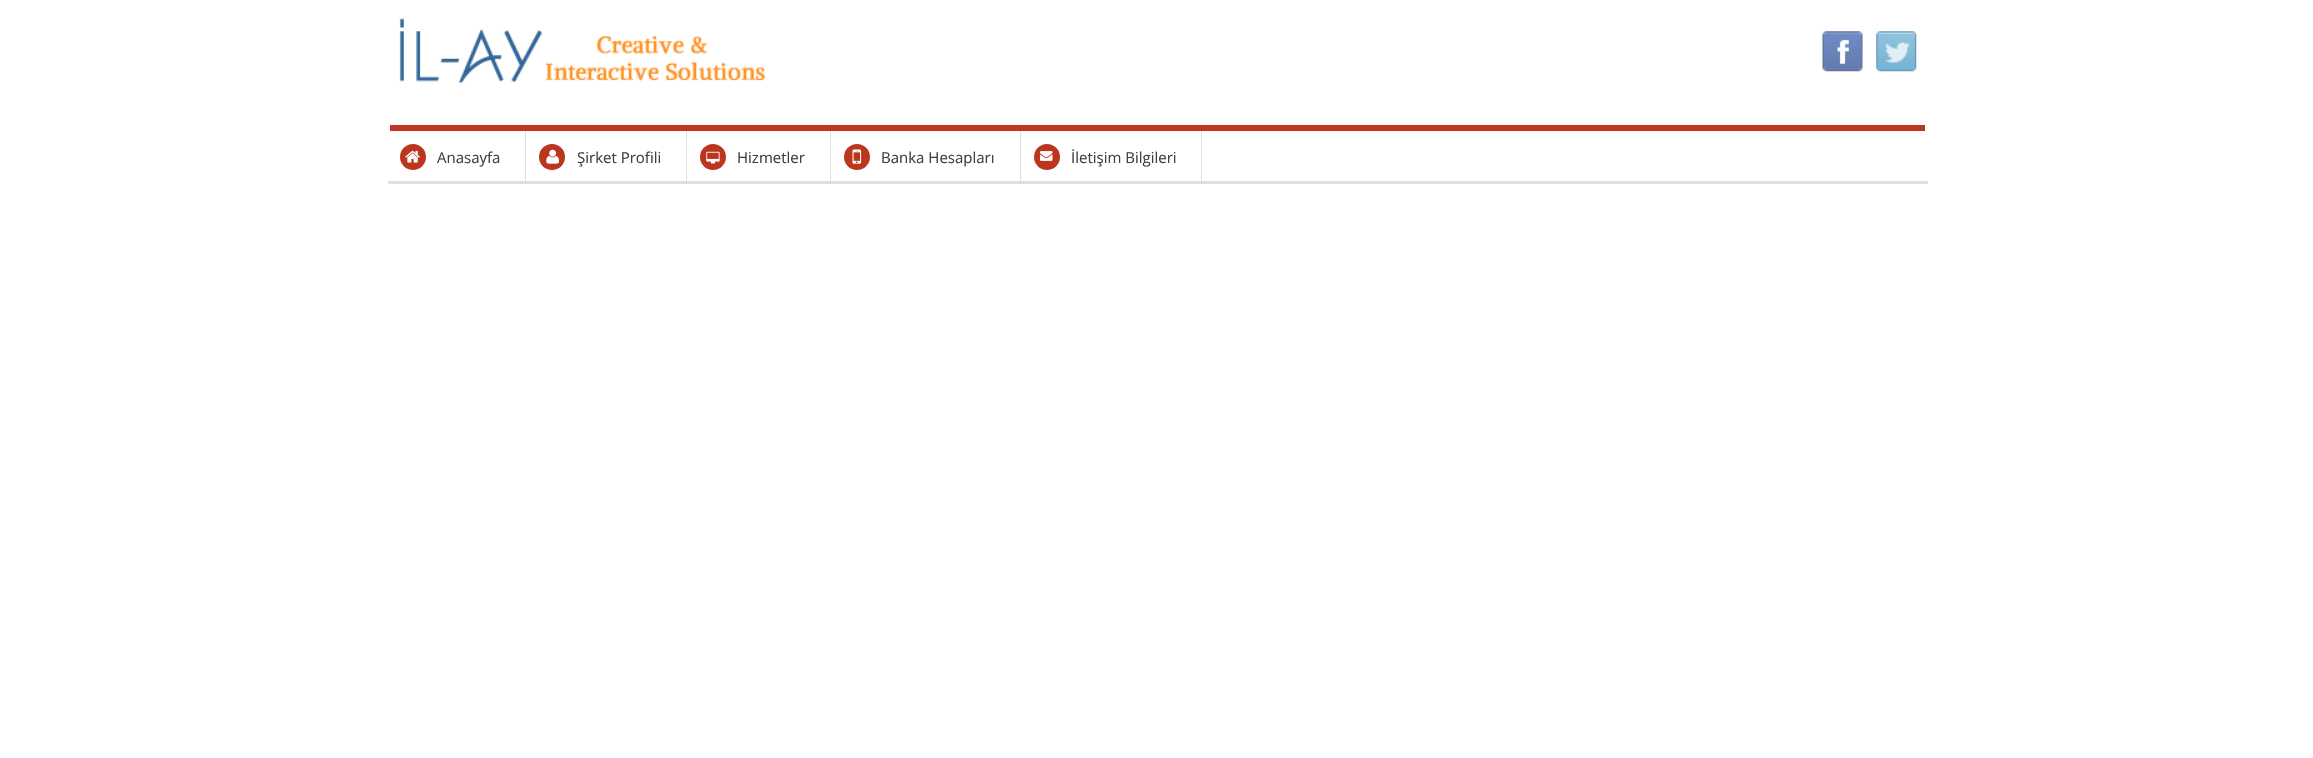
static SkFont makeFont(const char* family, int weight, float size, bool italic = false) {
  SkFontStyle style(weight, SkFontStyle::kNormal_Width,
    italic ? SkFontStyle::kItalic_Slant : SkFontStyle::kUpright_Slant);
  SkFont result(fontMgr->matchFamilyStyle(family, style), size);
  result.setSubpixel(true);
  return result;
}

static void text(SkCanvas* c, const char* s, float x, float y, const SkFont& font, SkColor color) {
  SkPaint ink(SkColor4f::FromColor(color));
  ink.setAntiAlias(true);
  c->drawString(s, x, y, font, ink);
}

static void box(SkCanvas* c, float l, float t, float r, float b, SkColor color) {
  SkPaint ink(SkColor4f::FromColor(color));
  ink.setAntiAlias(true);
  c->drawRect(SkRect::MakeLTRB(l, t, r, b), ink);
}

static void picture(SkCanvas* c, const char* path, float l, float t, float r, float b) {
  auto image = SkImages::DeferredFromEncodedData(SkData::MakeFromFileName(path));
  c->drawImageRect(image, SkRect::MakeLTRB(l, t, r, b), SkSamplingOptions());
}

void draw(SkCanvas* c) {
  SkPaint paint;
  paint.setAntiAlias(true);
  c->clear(0xffffffff);
  picture(c, "img_01.png", 399, 18, 766, 83);
  picture(c, "img_02.png", 1822, 31, 1863, 72);
  picture(c, "img_03.png", 1876, 31, 1917, 72);
  box(c, 390, 125, 1925, 131, 0xffbd3622);
  box(c, 388, 181, 1928, 184, 0xffdfdfdf);
  box(c, 525, 131, 526, 184, 0xffdfdfdf);
  paint.setColor(0xffbc351f);
  c->drawCircle(413, 157, 13, paint);
  picture(c, "img_04.png", 405, 150, 420, 163);
  SkFont face1 = makeFont("Open Sans", 400, 15);
  text(c, "Anasayfa", 437, 163, face1, 0xff3f3f3f);
  box(c, 686, 131, 687, 184, 0xffdfdfdf);
  c->drawCircle(552, 157, 13, paint);
  picture(c, "img_05.png", 546, 149, 559, 164);
  text(c, "Şirket Profili", 577, 163, face1, 0xff3f3f3f);
  box(c, 830, 131, 831, 184, 0xffdfdfdf);
  c->drawCircle(713, 157, 13, paint);
  picture(c, "img_06.png", 706, 151, 720, 164);
  text(c, "Hizmetler", 737, 163, face1, 0xff3f3f3f);
  box(c, 1020, 131, 1021, 184, 0xffdfdfdf);
  c->drawCircle(857, 157, 13, paint);
  picture(c, "img_07.png", 852, 149, 862, 164);
  text(c, "Banka Hesapları", 881, 163, face1, 0xff3f3f3f);
  box(c, 1201, 131, 1202, 184, 0xffdfdfdf);
  c->drawCircle(1047, 157, 13, paint);
  picture(c, "img_08.png", 1040, 151, 1053, 161);
  text(c, "İletişim Bilgileri", 1071, 163, face1, 0xff3f3f3f);
}
